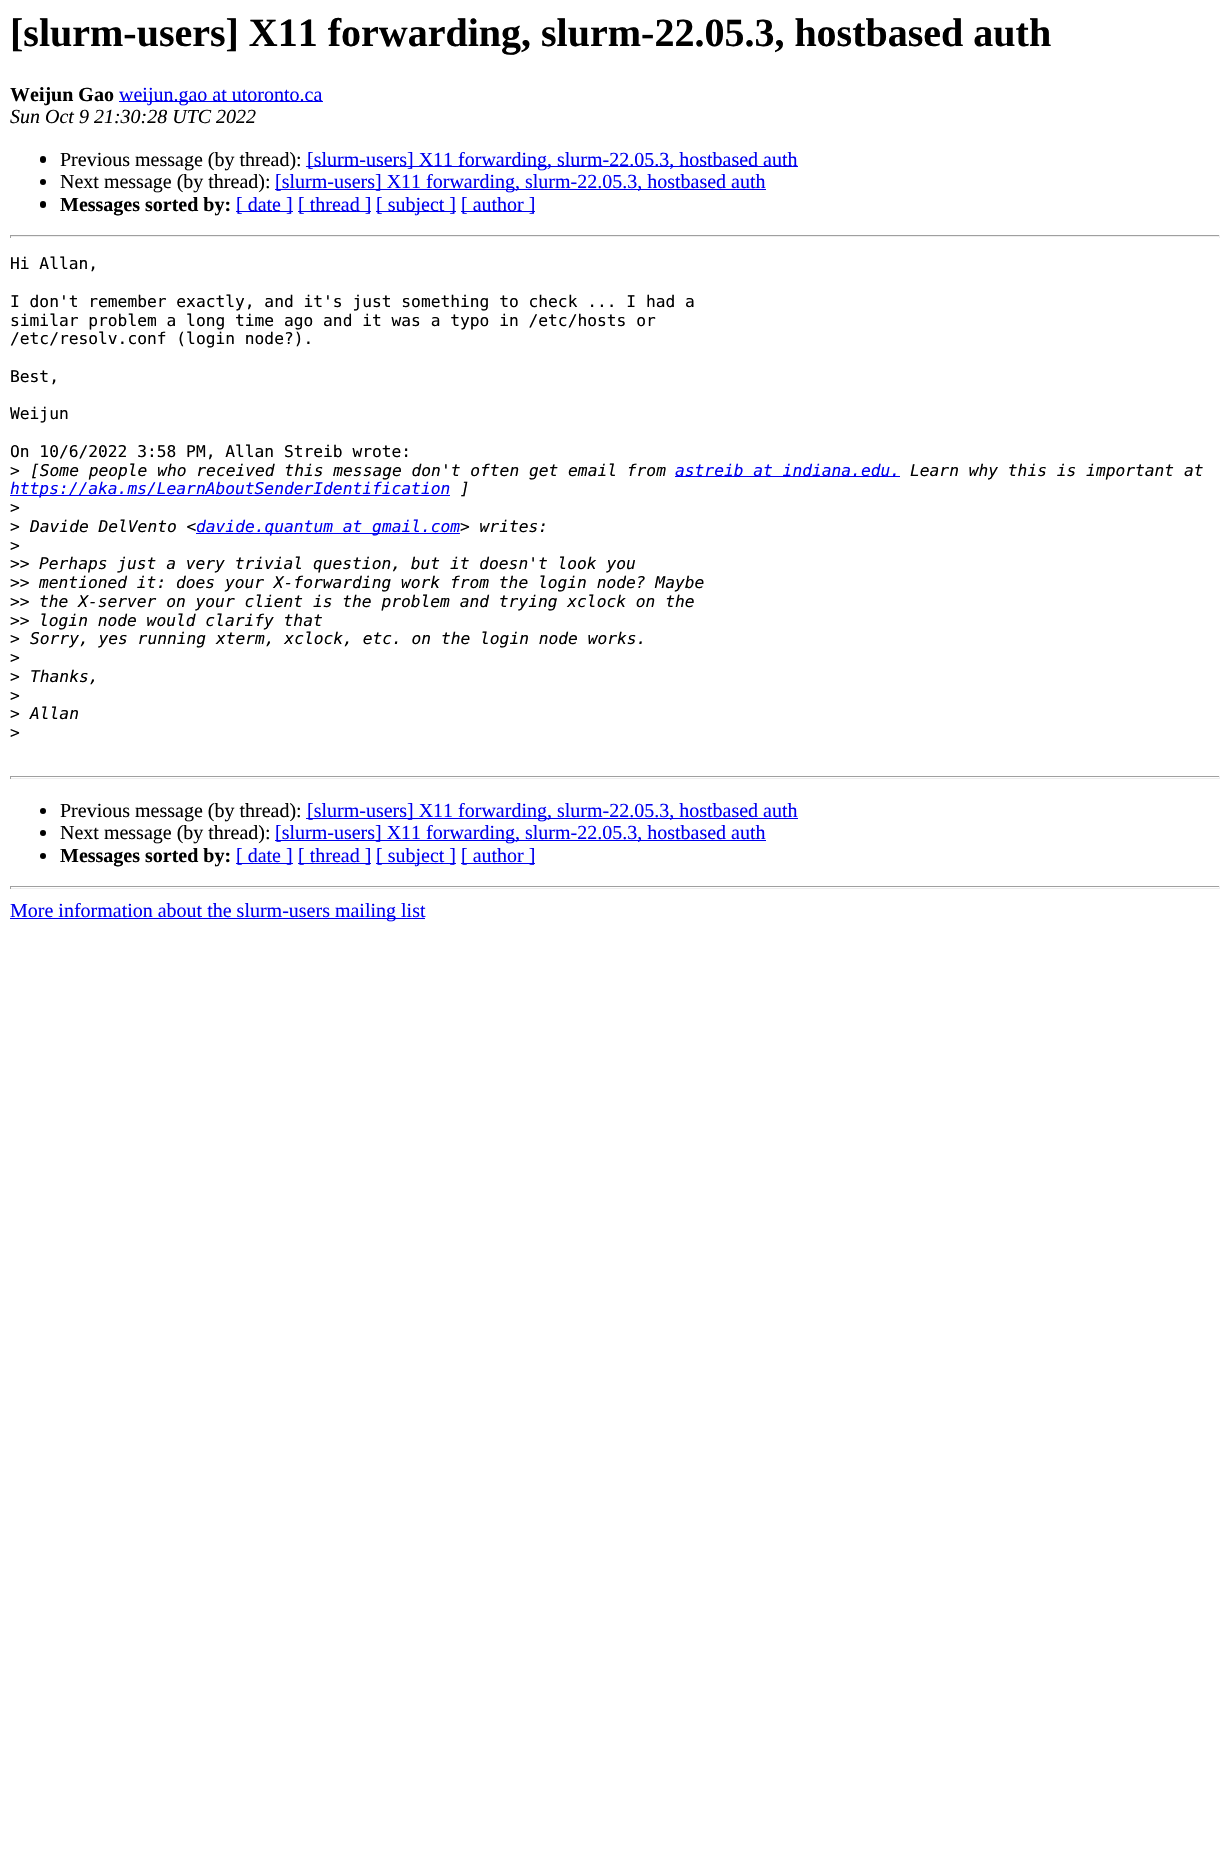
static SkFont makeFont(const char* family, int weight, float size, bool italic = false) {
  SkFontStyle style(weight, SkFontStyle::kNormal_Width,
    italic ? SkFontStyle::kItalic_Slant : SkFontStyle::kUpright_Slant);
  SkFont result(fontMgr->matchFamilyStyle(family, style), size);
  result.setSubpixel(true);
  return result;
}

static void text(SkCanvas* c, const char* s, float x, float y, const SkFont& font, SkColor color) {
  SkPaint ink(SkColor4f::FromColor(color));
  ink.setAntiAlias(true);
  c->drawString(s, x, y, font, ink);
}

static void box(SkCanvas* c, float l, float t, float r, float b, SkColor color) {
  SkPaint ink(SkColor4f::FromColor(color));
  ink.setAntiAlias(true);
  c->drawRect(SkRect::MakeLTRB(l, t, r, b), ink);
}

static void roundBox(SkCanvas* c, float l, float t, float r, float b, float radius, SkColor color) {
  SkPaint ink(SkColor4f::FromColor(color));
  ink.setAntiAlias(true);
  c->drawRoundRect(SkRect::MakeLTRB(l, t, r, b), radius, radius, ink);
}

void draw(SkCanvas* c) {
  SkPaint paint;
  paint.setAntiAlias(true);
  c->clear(0xffffffff);
  SkFont face1 = makeFont("Liberation Serif", 700, 40);
  text(c, "[slurm-users] X11 forwarding, slurm-22.05.3, hostbased auth", 10, 46, face1, 0xff000000);
  SkFont face2 = makeFont("Liberation Serif", 700, 20);
  text(c, "Weijun Gao", 10, 101, face2, 0xff000000);
  box(c, 119, 101, 323, 102, 0xff0000ee);
  SkFont face3 = makeFont("Liberation Serif", 400, 20);
  text(c, "weijun.gao at utoronto.ca", 119, 101, face3, 0xff0000ee);
  SkFont face4 = makeFont("Liberation Serif", 400, 20, true);
  text(c, "Sun Oct 9 21:30:28 UTC 2022", 10, 123, face4, 0xff000000);
  roundBox(c, 40, 156, 46, 163, 3, 0xff000000);
  text(c, "Previous message (by thread):", 60, 166, face3, 0xff000000);
  box(c, 306, 166, 798, 167, 0xff0000ee);
  text(c, "[slurm-users] X11 forwarding, slurm-22.05.3, hostbased auth", 307, 166, face3, 0xff0000ee);
  paint.setColor(0xff000000);
  c->drawCircle(43, 182, 3, paint);
  text(c, "Next message (by thread):", 60, 188, face3, 0xff000000);
  box(c, 275, 189, 766, 190, 0xff0000ee);
  text(c, "[slurm-users] X11 forwarding, slurm-22.05.3, hostbased auth", 275, 188, face3, 0xff0000ee);
  roundBox(c, 40, 201, 46, 208, 3, 0xff000000);
  text(c, "Messages sorted by:", 60, 211, face2, 0xff000000);
  box(c, 236, 211, 293, 212, 0xff0000ee);
  text(c, "[ date ]", 236, 211, face3, 0xff0000ee);
  box(c, 298, 211, 371, 212, 0xff0000ee);
  text(c, "[ thread ]", 298, 211, face3, 0xff0000ee);
  box(c, 376, 211, 456, 212, 0xff0000ee);
  text(c, "[ subject ]", 376, 211, face3, 0xff0000ee);
  box(c, 461, 211, 535, 212, 0xff0000ee);
  text(c, "[ author ]", 461, 211, face3, 0xff0000ee);
  box(c, 10, 235, 1220, 236, 0xff9f9f9f);
  box(c, 1219, 235, 1220, 238, 0xffeeeeee);
  box(c, 10, 236, 1220, 237, 0xffeeeeee);
  box(c, 10, 235, 11, 238, 0xff9f9f9f);
  SkFont face5 = makeFont("DejaVu Sans Mono", 400, 16.25f);
  text(c, "Hi Allan,", 10, 269, face5, 0xff000000);
  text(c, "I don't remember exactly, and it's just something to check ... I had a", 10, 307, face5, 0xff000000);
  text(c, "similar problem a long time ago and it was a typo in /etc/hosts or", 10, 326, face5, 0xff000000);
  text(c, "/etc/resolv.conf (login node?).", 10, 344, face5, 0xff000000);
  text(c, "Best,", 10, 382, face5, 0xff000000);
  text(c, "Weijun", 10, 419, face5, 0xff000000);
  text(c, "On 10/6/2022 3:58 PM, Allan Streib wrote:", 10, 457, face5, 0xff000000);
  text(c, ">", 10, 476, face5, 0xff000000);
  SkFont face6 = makeFont("DejaVu Sans Mono", 400, 16.25f, true);
  text(c, "[Some people who received this message don't often get email from", 30, 476, face6, 0xff000000);
  box(c, 675, 476, 900, 477, 0xff0000ee);
  text(c, "astreib at indiana.edu.", 675, 476, face6, 0xff0000ee);
  text(c, "Learn why this is important at", 910, 476, face6, 0xff000000);
  box(c, 10, 495, 450, 496, 0xff0000ee);
  text(c, "https://aka.ms/LearnAboutSenderIdentification", 10, 494, face6, 0xff0000ee);
  text(c, "]", 460, 494, face6, 0xff000000);
  text(c, ">", 10, 513, face5, 0xff000000);
  text(c, ">", 10, 532, face5, 0xff000000);
  text(c, "Davide DelVento <", 30, 532, face6, 0xff000000);
  box(c, 196, 533, 460, 534, 0xff0000ee);
  text(c, "davide.quantum at gmail.com", 196, 532, face6, 0xff0000ee);
  text(c, "> writes:", 460, 532, face6, 0xff000000);
  text(c, ">", 10, 551, face5, 0xff000000);
  text(c, ">>", 10, 569, face5, 0xff000000);
  text(c, "Perhaps just a very trivial question, but it doesn't look you", 39, 569, face6, 0xff000000);
  text(c, ">>", 10, 588, face5, 0xff000000);
  text(c, "mentioned it: does your X-forwarding work from the login node? Maybe", 39, 588, face6, 0xff000000);
  text(c, ">>", 10, 607, face5, 0xff000000);
  text(c, "the X-server on your client is the problem and trying xclock on the", 39, 607, face6, 0xff000000);
  text(c, ">>", 10, 626, face5, 0xff000000);
  text(c, "login node would clarify that", 39, 626, face6, 0xff000000);
  text(c, ">", 10, 644, face5, 0xff000000);
  text(c, "Sorry, yes running xterm, xclock, etc. on the login node works.", 30, 644, face6, 0xff000000);
  text(c, ">", 10, 663, face5, 0xff000000);
  text(c, ">", 10, 682, face5, 0xff000000);
  text(c, "Thanks,", 30, 682, face6, 0xff000000);
  text(c, ">", 10, 701, face5, 0xff000000);
  text(c, ">", 10, 719, face5, 0xff000000);
  text(c, "Allan", 30, 719, face6, 0xff000000);
  text(c, ">", 10, 738, face5, 0xff000000);
  box(c, 10, 776, 1220, 777, 0xff9f9f9f);
  box(c, 1219, 776, 1220, 779, 0xffeeeeee);
  box(c, 10, 778, 1220, 779, 0xffeeeeee);
  box(c, 10, 776, 11, 779, 0xff9f9f9f);
  c->drawCircle(43, 811, 3, paint);
  text(c, "Previous message (by thread):", 60, 817, face3, 0xff000000);
  box(c, 306, 818, 798, 819, 0xff0000ee);
  text(c, "[slurm-users] X11 forwarding, slurm-22.05.3, hostbased auth", 307, 817, face3, 0xff0000ee);
  c->drawCircle(43, 833, 3, paint);
  text(c, "Next message (by thread):", 60, 839, face3, 0xff000000);
  box(c, 275, 840, 766, 841, 0xff0000ee);
  text(c, "[slurm-users] X11 forwarding, slurm-22.05.3, hostbased auth", 275, 839, face3, 0xff0000ee);
  c->drawCircle(43, 856, 3, paint);
  text(c, "Messages sorted by:", 60, 862, face2, 0xff000000);
  box(c, 236, 863, 293, 864, 0xff0000ee);
  text(c, "[ date ]", 236, 862, face3, 0xff0000ee);
  box(c, 298, 863, 371, 864, 0xff0000ee);
  text(c, "[ thread ]", 298, 862, face3, 0xff0000ee);
  box(c, 376, 863, 456, 864, 0xff0000ee);
  text(c, "[ subject ]", 376, 862, face3, 0xff0000ee);
  box(c, 461, 863, 535, 864, 0xff0000ee);
  text(c, "[ author ]", 461, 862, face3, 0xff0000ee);
  box(c, 10, 886, 1220, 887, 0xff9f9f9f);
  box(c, 1219, 886, 1220, 889, 0xffeeeeee);
  box(c, 10, 888, 1220, 889, 0xffeeeeee);
  box(c, 10, 886, 11, 889, 0xff9f9f9f);
  box(c, 10, 918, 425, 919, 0xff0000ee);
  text(c, "More information about the slurm-users mailing list", 10, 917, face3, 0xff0000ee);
}
